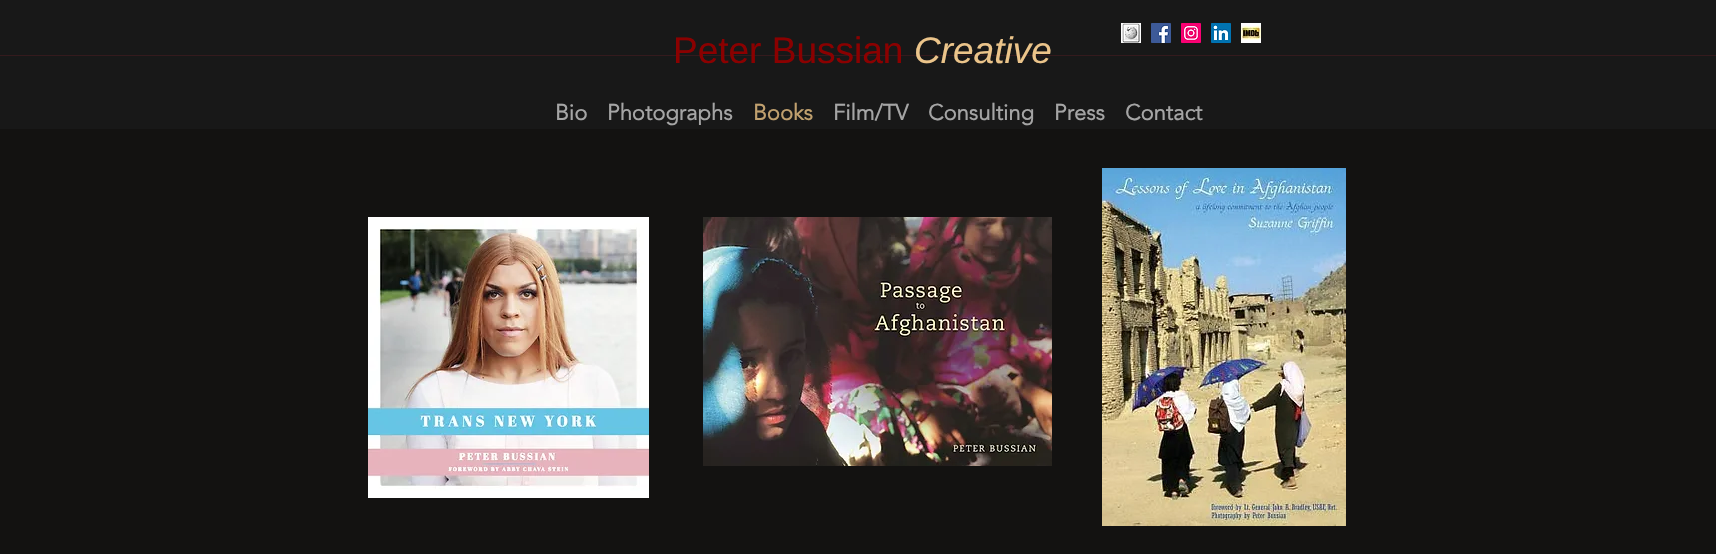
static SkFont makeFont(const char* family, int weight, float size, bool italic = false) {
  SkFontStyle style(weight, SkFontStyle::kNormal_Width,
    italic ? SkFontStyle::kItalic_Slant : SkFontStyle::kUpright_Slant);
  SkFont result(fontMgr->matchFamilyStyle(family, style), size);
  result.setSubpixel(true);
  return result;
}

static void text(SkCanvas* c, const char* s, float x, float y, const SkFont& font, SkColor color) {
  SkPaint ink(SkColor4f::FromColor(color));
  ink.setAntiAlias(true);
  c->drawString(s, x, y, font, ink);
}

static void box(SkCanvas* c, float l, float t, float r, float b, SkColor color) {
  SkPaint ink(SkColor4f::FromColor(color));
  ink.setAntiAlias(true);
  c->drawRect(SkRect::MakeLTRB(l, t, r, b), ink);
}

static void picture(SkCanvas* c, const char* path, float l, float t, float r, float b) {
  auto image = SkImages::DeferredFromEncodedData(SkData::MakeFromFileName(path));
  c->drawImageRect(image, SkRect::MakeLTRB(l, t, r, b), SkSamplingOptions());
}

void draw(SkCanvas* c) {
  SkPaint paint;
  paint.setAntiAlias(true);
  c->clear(0xff131211);
  box(c, 0, 0, 1716, 129, 0xff181818);
  picture(c, "img_01.png", 1121, 23, 1141, 43);
  picture(c, "img_02.png", 1151, 23, 1171, 43);
  picture(c, "img_03.png", 1181, 23, 1201, 43);
  picture(c, "img_04.png", 1211, 23, 1231, 43);
  picture(c, "img_05.png", 1241, 23, 1261, 43);
  box(c, 0, 55, 1716, 56, 0xff341a1d);
  SkFont face1 = makeFont("Liberation Sans", 400, 37);
  text(c, "Peter Bussian", 673, 63, face1, 0xff8b0000);
  SkFont face2 = makeFont("Liberation Sans", 400, 37, true);
  text(c, "Creative", 914, 63, face2, 0xffebc48a);
  SkFont face3 = makeFont("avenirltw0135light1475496", 700, 22);
  text(c, "Bio", 555, 120, face3, 0xffa5a5a5);
  text(c, "Photographs", 607, 120, face3, 0xffa5a5a5);
  text(c, "Books", 753, 120, face3, 0xffc0a06e);
  text(c, "Film/TV", 833, 120, face3, 0xffa5a5a5);
  text(c, "Consulting", 928, 120, face3, 0xffa5a5a5);
  text(c, "Press", 1054, 120, face3, 0xffa5a5a5);
  text(c, "Contact", 1125, 120, face3, 0xffa5a5a5);
  picture(c, "img_06.png", 368, 217, 649, 498);
  picture(c, "img_07.png", 703, 217, 1052, 466);
  picture(c, "img_08.png", 1102, 168, 1346, 526);
}
